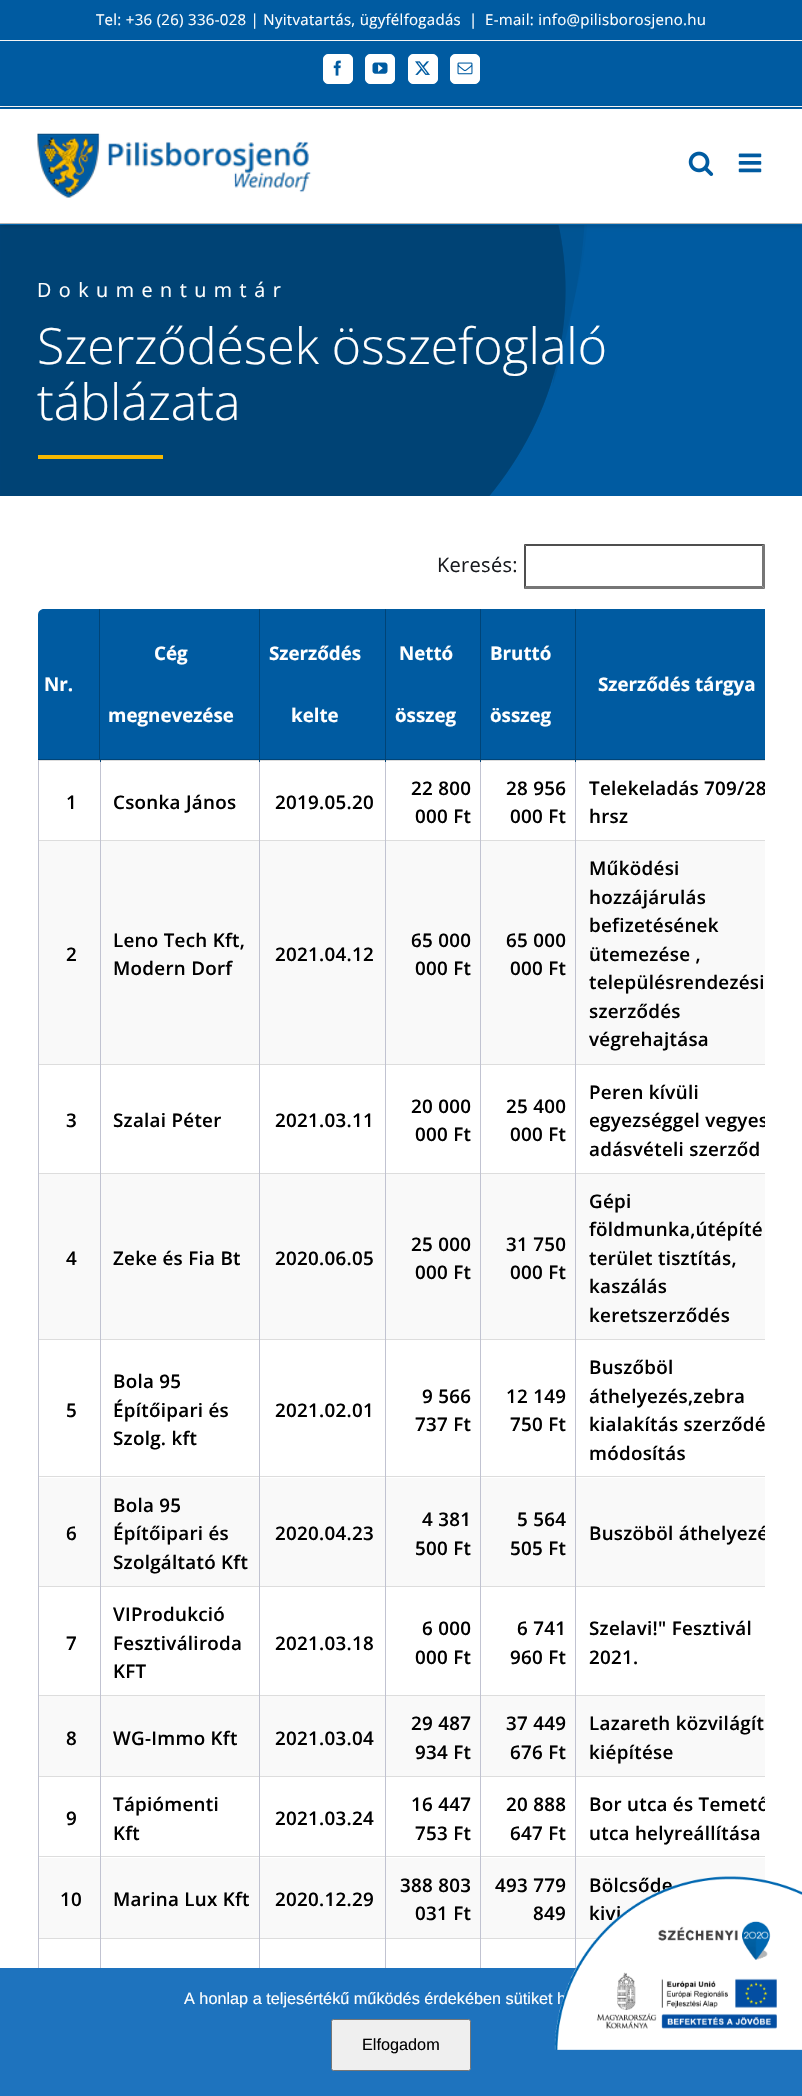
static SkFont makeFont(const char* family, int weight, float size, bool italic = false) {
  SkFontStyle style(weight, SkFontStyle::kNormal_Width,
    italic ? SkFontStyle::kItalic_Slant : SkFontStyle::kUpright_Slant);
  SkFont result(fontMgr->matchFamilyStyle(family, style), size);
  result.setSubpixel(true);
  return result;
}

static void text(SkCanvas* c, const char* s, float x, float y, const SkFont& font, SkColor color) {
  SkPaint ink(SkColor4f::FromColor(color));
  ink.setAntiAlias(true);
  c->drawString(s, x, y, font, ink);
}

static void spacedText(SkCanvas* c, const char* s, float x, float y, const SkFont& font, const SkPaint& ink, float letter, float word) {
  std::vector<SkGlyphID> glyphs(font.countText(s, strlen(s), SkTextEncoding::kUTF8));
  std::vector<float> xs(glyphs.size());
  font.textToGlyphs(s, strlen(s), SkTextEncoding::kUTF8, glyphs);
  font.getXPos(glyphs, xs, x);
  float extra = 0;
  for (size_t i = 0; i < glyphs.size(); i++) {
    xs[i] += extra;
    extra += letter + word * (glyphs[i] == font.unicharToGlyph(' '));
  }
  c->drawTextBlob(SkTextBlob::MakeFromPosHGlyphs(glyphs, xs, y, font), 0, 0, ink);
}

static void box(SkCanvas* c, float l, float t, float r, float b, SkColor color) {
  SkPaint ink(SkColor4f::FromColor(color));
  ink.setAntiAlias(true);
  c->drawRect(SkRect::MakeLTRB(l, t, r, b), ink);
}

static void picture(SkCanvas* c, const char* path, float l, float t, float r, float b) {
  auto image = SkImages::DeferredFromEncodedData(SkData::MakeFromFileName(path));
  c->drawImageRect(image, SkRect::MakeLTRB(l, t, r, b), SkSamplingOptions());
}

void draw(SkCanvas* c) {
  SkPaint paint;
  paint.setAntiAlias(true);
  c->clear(0xffffffff);
  box(c, 0, 0, 802, 108, 0xff005ba1);
  box(c, 0, 106, 802, 107, 0xffffffff);
  box(c, 0, 40, 802, 41, 0xfff5f5f5);
  SkFont face1 = makeFont("Open Sans", 400, 15);
  paint.setColor(0xffffffff);
  spacedText(c, "Tel: +36 (26) 336-028 | Nyitvatartás, ügyfélfogadás", 96, 25, face1, paint, 0.3f, 0);
  spacedText(c, "|", 469, 25, face1, paint, 0.3f, 0);
  spacedText(c, "E-mail: info@pilisborosjeno.hu", 485, 25, face1, paint, 0.3f, 0);
  c->drawRoundRect(SkRect::MakeLTRB(323.5f, 54.5f, 352.5f, 83.5f), 4.5f, 4.5f, paint);
  paint.setStyle(SkPaint::kStroke_Style);
  paint.setStrokeWidth(1);
  c->drawRoundRect(SkRect::MakeLTRB(323.5f, 54.5f, 352.5f, 83.5f), 4.5f, 4.5f, paint);
  picture(c, "img_01.png", 333, 60, 341, 76);
  paint.setStyle(SkPaint::kFill_Style);
  c->drawRoundRect(SkRect::MakeLTRB(365.5f, 54.5f, 394.5f, 83.5f), 4.5f, 4.5f, paint);
  paint.setStyle(SkPaint::kStroke_Style);
  c->drawRoundRect(SkRect::MakeLTRB(365.5f, 54.5f, 394.5f, 83.5f), 4.5f, 4.5f, paint);
  picture(c, "img_02.png", 372, 62, 388, 74);
  paint.setStyle(SkPaint::kFill_Style);
  c->drawRoundRect(SkRect::MakeLTRB(408.5f, 54.5f, 437.5f, 83.5f), 4.5f, 4.5f, paint);
  paint.setStyle(SkPaint::kStroke_Style);
  c->drawRoundRect(SkRect::MakeLTRB(408.5f, 54.5f, 437.5f, 83.5f), 4.5f, 4.5f, paint);
  picture(c, "img_03.png", 415, 61, 430, 75);
  paint.setStyle(SkPaint::kFill_Style);
  c->drawRoundRect(SkRect::MakeLTRB(450.5f, 54.5f, 479.5f, 83.5f), 4.5f, 4.5f, paint);
  paint.setStyle(SkPaint::kStroke_Style);
  c->drawRoundRect(SkRect::MakeLTRB(450.5f, 54.5f, 479.5f, 83.5f), 4.5f, 4.5f, paint);
  picture(c, "img_04.png", 457, 62, 473, 75);
  box(c, 0, 225, 802, 496, 0xff005ba1);
  box(c, 0, 224, 802, 225, 0xff0072c6);
  picture(c, "img_08.png", 0, 225, 587, 496);
  paint.setStyle(SkPaint::kFill_Style);
  paint.setColor(0x3d000000);
  paint.setMaskFilter(SkMaskFilter::MakeBlur(kNormal_SkBlurStyle, 2.5f));
  c->drawRect(SkRect::MakeLTRB(0, 109, 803, 225), paint);
  paint.setMaskFilter(nullptr);
  box(c, 0, 109, 802, 223, 0xffffffff);
  box(c, 0, 108, 802, 109, 0xff005ba1);
  box(c, 0, 223, 802, 224, 0xffb4b4b4);
  picture(c, "img_05.png", 37, 133, 312, 198);
  picture(c, "img_06.png", 688, 151, 714, 176);
  picture(c, "img_07.png", 738, 153, 762, 173);
  SkFont face2 = makeFont("Open Sans", 400, 19.75f);
  paint.setColor(0xffffffff);
  spacedText(c, "Dokumentumtár", 37, 297, face2, paint, 7.5f, 0);
  SkFont face3 = makeFont("Open Sans", 300, 50);
  text(c, "Szerződések összefoglaló", 37, 364, face3, 0xffffffff);
  text(c, "táblázata", 37, 420, face3, 0xffffffff);
  box(c, 38, 455, 163, 459, 0xfff6b801);
  SkFont face4 = makeFont("Open Sans", 400, 20);
  paint.setColor(0xff191a1e);
  spacedText(c, "Keresés:", 437, 572, face4, paint, 0.3f, 0);
  paint.setColor(0xff4f4f4f);
  c->drawPath(SkPathBuilder().moveTo(524, 544).lineTo(765, 544).lineTo(762, 546).lineTo(526, 546).close().detach(), paint);
  paint.setColor(0xff767676);
  c->drawPath(SkPathBuilder().moveTo(765, 544).lineTo(765, 589).lineTo(762, 586).lineTo(762, 546).close().detach(), paint);
  c->drawPath(SkPathBuilder().moveTo(765, 589).lineTo(524, 589).lineTo(526, 586).lineTo(762, 586).close().detach(), paint);
  paint.setColor(0xff4f4f4f);
  c->drawPath(SkPathBuilder().moveTo(524, 589).lineTo(524, 544).lineTo(526, 546).lineTo(526, 586).close().detach(), paint);
  paint.setColor(0xff005ba1);
  c->drawPath(SkPathBuilder().moveTo(44, 609).lineTo(100, 609).lineTo(100, 759).lineTo(38, 759).lineTo(38, 615).cubicTo(38, 611.5f, 40.5f, 609, 44, 609).close().detach(), paint);
  box(c, 575, 759, 765, 760, 0xff004477);
  box(c, 575, 609, 576, 760, 0xff004477);
  box(c, 480, 759, 576, 760, 0xff004477);
  box(c, 480, 609, 481, 760, 0xff004477);
  box(c, 385, 759, 481, 760, 0xff004477);
  box(c, 385, 609, 386, 760, 0xff004477);
  box(c, 259, 759, 386, 760, 0xff004477);
  box(c, 259, 609, 260, 760, 0xff004477);
  box(c, 99, 759, 260, 760, 0xff004477);
  box(c, 99, 609, 100, 760, 0xff004477);
  box(c, 38, 759, 100, 760, 0xff004477);
  SkFont face5 = makeFont("Open Sans", 700, 18.75f);
  text(c, "Nr.", 44, 691, face5, 0xffffffff);
  box(c, 100, 609, 259, 759, 0xff005ba1);
  text(c, "Cég", 154, 660, face5, 0xffffffff);
  text(c, "megnevezése", 108, 722, face5, 0xffffffff);
  box(c, 260, 609, 385, 759, 0xff005ba1);
  text(c, "Szerződés", 269, 660, face5, 0xffffffff);
  text(c, "kelte", 291, 722, face5, 0xffffffff);
  box(c, 386, 609, 480, 759, 0xff005ba1);
  text(c, "Nettó", 399, 660, face5, 0xffffffff);
  text(c, "összeg", 395, 722, face5, 0xffffffff);
  box(c, 481, 609, 575, 759, 0xff005ba1);
  text(c, "Bruttó", 490, 660, face5, 0xffffffff);
  text(c, "összeg", 490, 722, face5, 0xffffffff);
  box(c, 576, 609, 765, 759, 0xff005ba1);
  text(c, "Szerződés tárgya", 598, 691, face5, 0xffffffff);
  box(c, 38, 760, 765, 761, 0xffdddddd);
  box(c, 38, 840, 765, 841, 0xffdddddd);
  box(c, 38, 1064, 765, 1065, 0xffdddddd);
  box(c, 38, 1173, 765, 1174, 0xffdddddd);
  box(c, 38, 1339, 765, 1340, 0xffdddddd);
  box(c, 38, 1476, 765, 1477, 0xffdddddd);
  box(c, 38, 1586, 765, 1587, 0xffdddddd);
  box(c, 38, 1695, 765, 1696, 0xffdddddd);
  box(c, 38, 1776, 765, 1777, 0xffdddddd);
  box(c, 38, 1856, 765, 1857, 0xffdddddd);
  box(c, 38, 1938, 598, 1939, 0xffdddddd);
  box(c, 100, 1938, 101, 1968, 0xffc1c3d1);
  box(c, 100, 1856, 101, 1939, 0xffc1c3d1);
  box(c, 100, 1776, 101, 1858, 0xffc1c3d1);
  box(c, 100, 1695, 101, 1778, 0xffc1c3d1);
  box(c, 100, 1586, 101, 1696, 0xffc1c3d1);
  box(c, 100, 1476, 101, 1588, 0xffc1c3d1);
  box(c, 100, 1339, 101, 1478, 0xffc1c3d1);
  box(c, 100, 1173, 101, 1340, 0xffc1c3d1);
  box(c, 100, 1064, 101, 1174, 0xffc1c3d1);
  box(c, 100, 840, 101, 1065, 0xffc1c3d1);
  box(c, 100, 760, 101, 841, 0xffc1c3d1);
  box(c, 100, 760, 101, 762, 0xff004477);
  box(c, 259, 1938, 260, 1968, 0xffc1c3d1);
  box(c, 259, 1856, 260, 1939, 0xffc1c3d1);
  box(c, 259, 1776, 260, 1858, 0xffc1c3d1);
  box(c, 259, 1695, 260, 1778, 0xffc1c3d1);
  box(c, 259, 1586, 260, 1696, 0xffc1c3d1);
  box(c, 259, 1476, 260, 1588, 0xffc1c3d1);
  box(c, 259, 1339, 260, 1478, 0xffc1c3d1);
  box(c, 259, 1173, 260, 1340, 0xffc1c3d1);
  box(c, 259, 1064, 260, 1174, 0xffc1c3d1);
  box(c, 259, 840, 260, 1065, 0xffc1c3d1);
  box(c, 259, 760, 260, 841, 0xffc1c3d1);
  box(c, 259, 760, 260, 762, 0xff004477);
  box(c, 385, 1938, 386, 1968, 0xffc1c3d1);
  box(c, 385, 1856, 386, 1939, 0xffc1c3d1);
  box(c, 385, 1776, 386, 1858, 0xffc1c3d1);
  box(c, 385, 1695, 386, 1778, 0xffc1c3d1);
  box(c, 385, 1586, 386, 1696, 0xffc1c3d1);
  box(c, 385, 1476, 386, 1588, 0xffc1c3d1);
  box(c, 385, 1339, 386, 1478, 0xffc1c3d1);
  box(c, 385, 1173, 386, 1340, 0xffc1c3d1);
  box(c, 385, 1064, 386, 1174, 0xffc1c3d1);
  box(c, 385, 840, 386, 1065, 0xffc1c3d1);
  box(c, 385, 760, 386, 841, 0xffc1c3d1);
  box(c, 385, 760, 386, 762, 0xff004477);
  box(c, 480, 1938, 481, 1968, 0xffc1c3d1);
  box(c, 480, 1856, 481, 1939, 0xffc1c3d1);
  box(c, 480, 1776, 481, 1858, 0xffc1c3d1);
  box(c, 480, 1695, 481, 1778, 0xffc1c3d1);
  box(c, 480, 1586, 481, 1696, 0xffc1c3d1);
  box(c, 480, 1476, 481, 1588, 0xffc1c3d1);
  box(c, 480, 1339, 481, 1478, 0xffc1c3d1);
  box(c, 480, 1173, 481, 1340, 0xffc1c3d1);
  box(c, 480, 1064, 481, 1174, 0xffc1c3d1);
  box(c, 480, 840, 481, 1065, 0xffc1c3d1);
  box(c, 480, 760, 481, 841, 0xffc1c3d1);
  box(c, 480, 760, 481, 762, 0xff004477);
  box(c, 575, 1938, 576, 1968, 0xffc1c3d1);
  box(c, 575, 1856, 576, 1939, 0xffc1c3d1);
  box(c, 575, 1776, 576, 1858, 0xffc1c3d1);
  box(c, 575, 1695, 576, 1778, 0xffc1c3d1);
  box(c, 575, 1586, 576, 1696, 0xffc1c3d1);
  box(c, 575, 1476, 576, 1588, 0xffc1c3d1);
  box(c, 575, 1339, 576, 1478, 0xffc1c3d1);
  box(c, 575, 1173, 576, 1340, 0xffc1c3d1);
  box(c, 575, 1064, 576, 1174, 0xffc1c3d1);
  box(c, 575, 840, 576, 1065, 0xffc1c3d1);
  box(c, 575, 760, 576, 841, 0xffc1c3d1);
  box(c, 575, 760, 576, 762, 0xff004477);
  box(c, 38, 1938, 39, 1968, 0xffc1c3d1);
  box(c, 38, 1856, 39, 1939, 0xffc1c3d1);
  box(c, 38, 1776, 39, 1858, 0xffc1c3d1);
  box(c, 38, 1695, 39, 1778, 0xffc1c3d1);
  box(c, 38, 1586, 39, 1696, 0xffc1c3d1);
  box(c, 38, 1476, 39, 1588, 0xffc1c3d1);
  box(c, 38, 1339, 39, 1478, 0xffc1c3d1);
  box(c, 38, 1173, 39, 1340, 0xffc1c3d1);
  box(c, 38, 1064, 39, 1174, 0xffc1c3d1);
  box(c, 38, 840, 39, 1065, 0xffc1c3d1);
  box(c, 38, 760, 39, 841, 0xffc1c3d1);
  SkFont face6 = makeFont("Open Sans", 600, 18.75f);
  paint.setColor(0xff000000);
  spacedText(c, "1", 66, 809, face6, paint, 0.3f, 0);
  spacedText(c, "Csonka János", 113, 809, face6, paint, 0.3f, 0);
  spacedText(c, "2019.05.20", 275, 809, face6, paint, 0.3f, 0);
  spacedText(c, "22 800", 411, 795, face6, paint, 0.3f, 0);
  spacedText(c, "000 Ft", 415, 823, face6, paint, 0.3f, 0);
  spacedText(c, "28 956", 506, 795, face6, paint, 0.3f, 0);
  spacedText(c, "000 Ft", 510, 823, face6, paint, 0.3f, 0);
  spacedText(c, "Telekeladás", 589, 795, face6, paint, 0.3f, 0);
  c->save();
  c->clipRect(SkRect::MakeLTRB(38, 760, 765, 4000));
  spacedText(c, "709/28", 704, 795, face6, paint, 0.3f, 0);
  c->restore();
  spacedText(c, "hrsz", 589, 823, face6, paint, 0.3f, 0);
  box(c, 39, 841, 100, 1064, 0xfff9f9f9);
  spacedText(c, "2", 66, 961, face6, paint, 0.3f, 0);
  box(c, 101, 841, 259, 1064, 0xfff9f9f9);
  spacedText(c, "Leno Tech Kft,", 113, 947, face6, paint, 0.3f, 0);
  spacedText(c, "Modern Dorf", 113, 975, face6, paint, 0.3f, 0);
  box(c, 260, 841, 385, 1064, 0xfff9f9f9);
  spacedText(c, "2021.04.12", 275, 961, face6, paint, 0.3f, 0);
  box(c, 386, 841, 480, 1064, 0xfff9f9f9);
  spacedText(c, "65 000", 411, 947, face6, paint, 0.3f, 0);
  spacedText(c, "000 Ft", 415, 975, face6, paint, 0.3f, 0);
  box(c, 481, 841, 575, 1064, 0xfff9f9f9);
  spacedText(c, "65 000", 506, 947, face6, paint, 0.3f, 0);
  spacedText(c, "000 Ft", 510, 975, face6, paint, 0.3f, 0);
  box(c, 576, 841, 765, 1064, 0xfff9f9f9);
  spacedText(c, "Működési", 589, 875, face6, paint, 0.3f, 0);
  spacedText(c, "hozzájárulás", 589, 904, face6, paint, 0.3f, 0);
  spacedText(c, "befizetésének", 589, 932, face6, paint, 0.3f, 0);
  spacedText(c, "ütemezése ,", 589, 961, face6, paint, 0.3f, 0);
  spacedText(c, "településrendezési", 589, 989, face6, paint, 0.3f, 0);
  spacedText(c, "szerződés", 589, 1018, face6, paint, 0.3f, 0);
  spacedText(c, "végrehajtása", 589, 1046, face6, paint, 0.3f, 0);
  spacedText(c, "3", 66, 1127, face6, paint, 0.3f, 0);
  spacedText(c, "Szalai Péter", 113, 1127, face6, paint, 0.3f, 0);
  spacedText(c, "2021.03.11", 275, 1127, face6, paint, 0.3f, 0);
  spacedText(c, "20 000", 411, 1113, face6, paint, 0.3f, 0);
  spacedText(c, "000 Ft", 415, 1141, face6, paint, 0.3f, 0);
  spacedText(c, "25 400", 506, 1113, face6, paint, 0.3f, 0);
  spacedText(c, "000 Ft", 510, 1141, face6, paint, 0.3f, 0);
  spacedText(c, "Peren kívüli", 589, 1099, face6, paint, 0.3f, 0);
  c->save();
  c->clipRect(SkRect::MakeLTRB(38, 760, 765, 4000));
  spacedText(c, "egyezséggel vegyes", 589, 1127, face6, paint, 0.3f, 0);
  c->restore();
  spacedText(c, "adásvételi szerződ", 589, 1156, face6, paint, 0.3f, 0);
  box(c, 39, 1174, 100, 1339, 0xfff9f9f9);
  spacedText(c, "4", 66, 1265, face6, paint, 0.3f, 0);
  box(c, 101, 1174, 259, 1339, 0xfff9f9f9);
  spacedText(c, "Zeke és Fia Bt", 113, 1265, face6, paint, 0.3f, 0);
  box(c, 260, 1174, 385, 1339, 0xfff9f9f9);
  spacedText(c, "2020.06.05", 275, 1265, face6, paint, 0.3f, 0);
  box(c, 386, 1174, 480, 1339, 0xfff9f9f9);
  spacedText(c, "25 000", 411, 1251, face6, paint, 0.3f, 0);
  spacedText(c, "000 Ft", 415, 1279, face6, paint, 0.3f, 0);
  box(c, 481, 1174, 575, 1339, 0xfff9f9f9);
  spacedText(c, "31 750", 506, 1251, face6, paint, 0.3f, 0);
  spacedText(c, "000 Ft", 510, 1279, face6, paint, 0.3f, 0);
  box(c, 576, 1174, 765, 1339, 0xfff9f9f9);
  spacedText(c, "Gépi", 589, 1208, face6, paint, 0.3f, 0);
  spacedText(c, "földmunka,útépíté", 589, 1236, face6, paint, 0.3f, 0);
  spacedText(c, "terület tisztítás,", 589, 1265, face6, paint, 0.3f, 0);
  spacedText(c, "kaszálás", 589, 1293, face6, paint, 0.3f, 0);
  spacedText(c, "keretszerződés", 589, 1322, face6, paint, 0.3f, 0);
  spacedText(c, "5", 66, 1417, face6, paint, 0.3f, 0);
  spacedText(c, "Bola 95", 113, 1388, face6, paint, 0.3f, 0);
  spacedText(c, "Építőipari és", 113, 1417, face6, paint, 0.3f, 0);
  spacedText(c, "Szolg. kft", 113, 1445, face6, paint, 0.3f, 0);
  spacedText(c, "2021.02.01", 275, 1417, face6, paint, 0.3f, 0);
  spacedText(c, "9 566", 422, 1403, face6, paint, 0.3f, 0);
  spacedText(c, "737 Ft", 415, 1431, face6, paint, 0.3f, 0);
  spacedText(c, "12 149", 506, 1403, face6, paint, 0.3f, 0);
  spacedText(c, "750 Ft", 510, 1431, face6, paint, 0.3f, 0);
  spacedText(c, "Buszőböl", 589, 1374, face6, paint, 0.3f, 0);
  spacedText(c, "áthelyezés,zebra", 589, 1403, face6, paint, 0.3f, 0);
  spacedText(c, "kialakítás szerződé", 589, 1431, face6, paint, 0.3f, 0);
  spacedText(c, "módosítás", 589, 1460, face6, paint, 0.3f, 0);
  box(c, 39, 1478, 100, 1586, 0xfff9f9f9);
  spacedText(c, "6", 66, 1540, face6, paint, 0.3f, 0);
  box(c, 101, 1478, 259, 1586, 0xfff9f9f9);
  spacedText(c, "Bola 95", 113, 1512, face6, paint, 0.3f, 0);
  spacedText(c, "Építőipari és", 113, 1540, face6, paint, 0.3f, 0);
  spacedText(c, "Szolgáltató Kft", 113, 1569, face6, paint, 0.3f, 0);
  box(c, 260, 1478, 385, 1586, 0xfff9f9f9);
  spacedText(c, "2020.04.23", 275, 1540, face6, paint, 0.3f, 0);
  box(c, 386, 1478, 480, 1586, 0xfff9f9f9);
  spacedText(c, "4 381", 422, 1526, face6, paint, 0.3f, 0);
  spacedText(c, "500 Ft", 415, 1555, face6, paint, 0.3f, 0);
  box(c, 481, 1478, 575, 1586, 0xfff9f9f9);
  spacedText(c, "5 564", 517, 1526, face6, paint, 0.3f, 0);
  spacedText(c, "505 Ft", 510, 1555, face6, paint, 0.3f, 0);
  box(c, 576, 1478, 765, 1586, 0xfff9f9f9);
  c->save();
  c->clipRect(SkRect::MakeLTRB(38, 760, 765, 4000));
  spacedText(c, "Buszöböl áthelyezé", 589, 1540, face6, paint, 0.3f, 0);
  c->restore();
  spacedText(c, "7", 66, 1650, face6, paint, 0.3f, 0);
  spacedText(c, "VIProdukció", 113, 1621, face6, paint, 0.3f, 0);
  spacedText(c, "Fesztiváliroda", 113, 1650, face6, paint, 0.3f, 0);
  spacedText(c, "KFT", 113, 1678, face6, paint, 0.3f, 0);
  spacedText(c, "2021.03.18", 275, 1650, face6, paint, 0.3f, 0);
  spacedText(c, "6 000", 422, 1635, face6, paint, 0.3f, 0);
  spacedText(c, "000 Ft", 415, 1664, face6, paint, 0.3f, 0);
  spacedText(c, "6 741", 517, 1635, face6, paint, 0.3f, 0);
  spacedText(c, "960 Ft", 510, 1664, face6, paint, 0.3f, 0);
  spacedText(c, "Szelavi!\" Fesztivál", 589, 1635, face6, paint, 0.3f, 0);
  spacedText(c, "2021.", 589, 1664, face6, paint, 0.3f, 0);
  box(c, 39, 1696, 100, 1776, 0xfff9f9f9);
  spacedText(c, "8", 66, 1745, face6, paint, 0.3f, 0);
  box(c, 101, 1696, 259, 1776, 0xfff9f9f9);
  spacedText(c, "WG-Immo Kft", 113, 1745, face6, paint, 0.3f, 0);
  box(c, 260, 1696, 385, 1776, 0xfff9f9f9);
  spacedText(c, "2021.03.04", 275, 1745, face6, paint, 0.3f, 0);
  box(c, 386, 1696, 480, 1776, 0xfff9f9f9);
  spacedText(c, "29 487", 411, 1730, face6, paint, 0.3f, 0);
  spacedText(c, "934 Ft", 415, 1759, face6, paint, 0.3f, 0);
  box(c, 481, 1696, 575, 1776, 0xfff9f9f9);
  spacedText(c, "37 449", 506, 1730, face6, paint, 0.3f, 0);
  spacedText(c, "676 Ft", 510, 1759, face6, paint, 0.3f, 0);
  box(c, 576, 1696, 765, 1776, 0xfff9f9f9);
  spacedText(c, "Lazareth közvilágít", 589, 1730, face6, paint, 0.3f, 0);
  spacedText(c, "kiépítése", 589, 1759, face6, paint, 0.3f, 0);
  spacedText(c, "9", 66, 1825, face6, paint, 0.3f, 0);
  spacedText(c, "Tápiómenti", 113, 1811, face6, paint, 0.3f, 0);
  spacedText(c, "Kft", 113, 1840, face6, paint, 0.3f, 0);
  spacedText(c, "2021.03.24", 275, 1825, face6, paint, 0.3f, 0);
  spacedText(c, "16 447", 411, 1811, face6, paint, 0.3f, 0);
  spacedText(c, "753 Ft", 415, 1840, face6, paint, 0.3f, 0);
  spacedText(c, "20 888", 506, 1811, face6, paint, 0.3f, 0);
  spacedText(c, "647 Ft", 510, 1840, face6, paint, 0.3f, 0);
  c->save();
  c->clipRect(SkRect::MakeLTRB(38, 760, 765, 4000));
  spacedText(c, "Bor utca és Temető", 589, 1811, face6, paint, 0.3f, 0);
  c->restore();
  spacedText(c, "utca helyreállítása", 589, 1840, face6, paint, 0.3f, 0);
  box(c, 39, 1858, 100, 1938, 0xfff9f9f9);
  spacedText(c, "10", 60, 1906, face6, paint, 0.3f, 0);
  box(c, 101, 1858, 259, 1938, 0xfff9f9f9);
  spacedText(c, "Marina Lux Kft", 113, 1906, face6, paint, 0.3f, 0);
  box(c, 260, 1858, 385, 1938, 0xfff9f9f9);
  spacedText(c, "2020.12.29", 275, 1906, face6, paint, 0.3f, 0);
  box(c, 386, 1858, 480, 1938, 0xfff9f9f9);
  spacedText(c, "388 803", 400, 1892, face6, paint, 0.3f, 0);
  spacedText(c, "031 Ft", 415, 1920, face6, paint, 0.3f, 0);
  box(c, 481, 1858, 575, 1938, 0xfff9f9f9);
  spacedText(c, "493 779", 495, 1892, face6, paint, 0.3f, 0);
  spacedText(c, "849", 533, 1920, face6, paint, 0.3f, 0);
  box(c, 576, 1858, 765, 1938, 0xfff9f9f9);
  spacedText(c, "Bölcsőde", 589, 1892, face6, paint, 0.3f, 0);
  spacedText(c, "kivi", 589, 1920, face6, paint, 0.3f, 0);
  box(c, 0, 1968, 802, 2096, 0xff1e73be);
  SkFont face7 = makeFont("Liberation Sans", 400, 16.25f);
  text(c, "A honlap a teljesértékű működés érdekében sütiket h", 184, 2004, face7, 0xffffffff);
  paint.setColor(0xffefefef);
  c->drawRoundRect(SkRect::MakeLTRB(331.5f, 2019.5f, 470.5f, 2070.5f), 2, 2, paint);
  paint.setStyle(SkPaint::kStroke_Style);
  paint.setColor(0xff767676);
  c->drawRoundRect(SkRect::MakeLTRB(331.5f, 2019.5f, 470.5f, 2070.5f), 2, 2, paint);
  text(c, "Elfogadom", 362, 2050, face7, 0xff000000);
  picture(c, "img_09.png", 554, 1876, 802, 2050);
}
